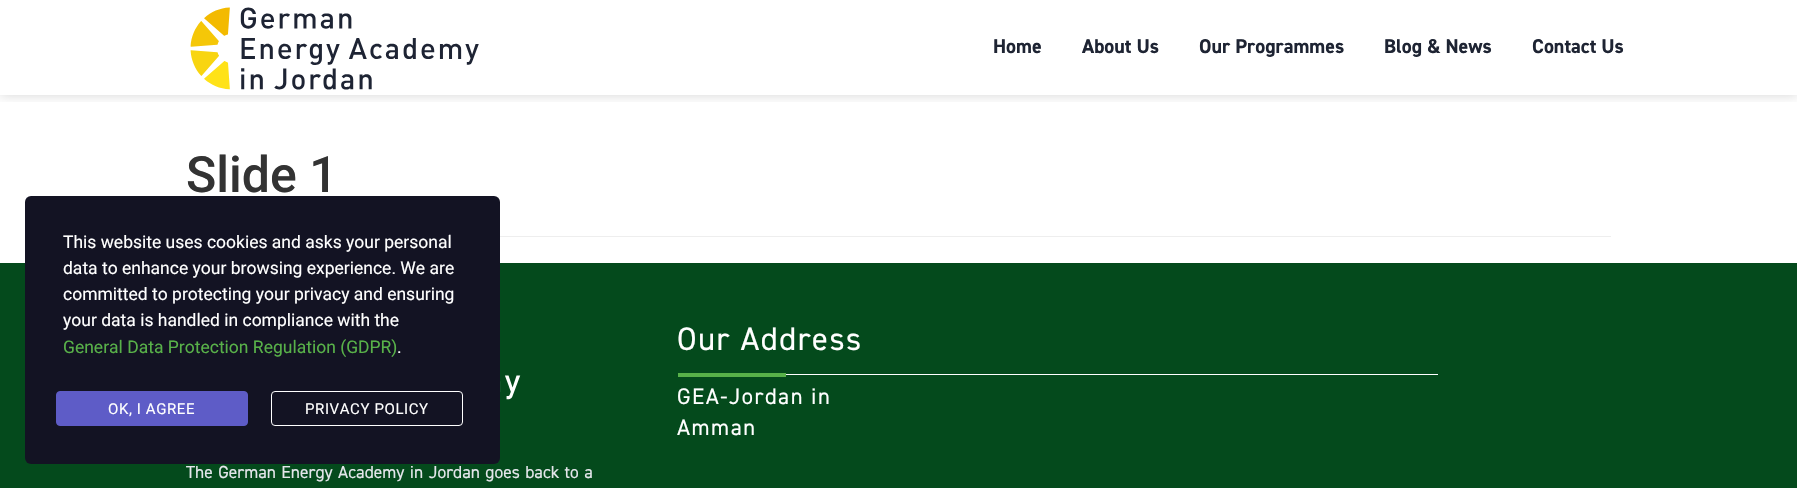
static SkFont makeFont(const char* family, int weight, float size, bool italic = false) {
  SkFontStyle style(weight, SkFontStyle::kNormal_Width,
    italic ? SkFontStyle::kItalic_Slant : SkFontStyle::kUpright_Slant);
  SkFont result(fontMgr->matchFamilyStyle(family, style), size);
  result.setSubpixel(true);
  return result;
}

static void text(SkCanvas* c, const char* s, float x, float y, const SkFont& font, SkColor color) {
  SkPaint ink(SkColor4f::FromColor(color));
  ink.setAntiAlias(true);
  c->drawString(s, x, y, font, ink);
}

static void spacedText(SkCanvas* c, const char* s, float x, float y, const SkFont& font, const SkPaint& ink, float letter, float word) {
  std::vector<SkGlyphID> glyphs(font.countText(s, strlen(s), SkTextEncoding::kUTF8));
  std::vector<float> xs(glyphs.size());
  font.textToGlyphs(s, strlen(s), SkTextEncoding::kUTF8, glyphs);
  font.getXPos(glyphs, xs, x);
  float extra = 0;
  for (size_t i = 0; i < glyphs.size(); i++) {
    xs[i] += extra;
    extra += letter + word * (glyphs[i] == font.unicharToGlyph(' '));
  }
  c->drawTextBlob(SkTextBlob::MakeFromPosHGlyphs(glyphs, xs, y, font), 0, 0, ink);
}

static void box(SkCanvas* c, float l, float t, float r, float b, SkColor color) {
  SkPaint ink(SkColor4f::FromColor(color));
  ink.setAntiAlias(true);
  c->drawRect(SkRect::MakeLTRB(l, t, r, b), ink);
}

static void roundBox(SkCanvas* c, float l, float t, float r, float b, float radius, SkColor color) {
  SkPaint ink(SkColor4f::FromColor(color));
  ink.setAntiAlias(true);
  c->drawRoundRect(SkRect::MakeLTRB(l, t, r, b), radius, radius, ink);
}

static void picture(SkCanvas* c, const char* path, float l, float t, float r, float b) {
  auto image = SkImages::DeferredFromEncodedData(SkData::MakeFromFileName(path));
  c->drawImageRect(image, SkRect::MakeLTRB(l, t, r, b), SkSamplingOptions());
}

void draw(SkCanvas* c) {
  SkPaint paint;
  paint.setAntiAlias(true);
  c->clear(0xffffffff);
  c->save();
  c->clipRect(SkRect::MakeLTRB(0, 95, 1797, 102));
  paint.setColor(0x29000000);
  paint.setMaskFilter(SkMaskFilter::MakeBlur(kNormal_SkBlurStyle, 6));
  c->drawRect(SkRect::MakeLTRB(0, 0, 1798, 95), paint);
  paint.setMaskFilter(nullptr);
  c->restore();
  picture(c, "img_01.png", 190, 7, 479, 90);
  SkFont face1 = makeFont("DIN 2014", 700, 20);
  text(c, "Home", 993, 53, face1, 0xff1e2433);
  text(c, "About Us", 1082, 53, face1, 0xff1e2433);
  text(c, "Our Programmes", 1199, 53, face1, 0xff1e2433);
  text(c, "Blog & News", 1384, 53, face1, 0xff1e2433);
  text(c, "Contact Us", 1532, 53, face1, 0xff1e2433);
  box(c, 500, 236, 1611, 237, 0xffeeeeee);
  SkFont face2 = makeFont("Roboto", 500, 50);
  text(c, "Slide 1", 186, 192, face2, 0xff333333);
  box(c, 0, 263, 1797, 488, 0xff044a1c);
  roundBox(c, 25, 196, 500, 464, 6, 0xff131323);
  SkFont face3 = makeFont("Roboto", 400, 17.5f);
  text(c, "This website uses cookies and asks your personal", 63, 248, face3, 0xffffffff);
  text(c, "data to enhance your browsing experience. We are", 63, 274, face3, 0xffffffff);
  text(c, "committed to protecting your privacy and ensuring", 63, 300, face3, 0xffffffff);
  text(c, "your data is handled in compliance with the", 63, 326, face3, 0xffffffff);
  text(c, "General Data Protection Regulation (GDPR)", 63, 353, face3, 0xff58b149);
  text(c, ".", 397, 353, face3, 0xffffffff);
  paint.setColor(0xff5e5cc7);
  c->drawRoundRect(SkRect::MakeLTRB(56.5f, 391.5f, 247.5f, 425.5f), 3.5f, 3.5f, paint);
  paint.setStyle(SkPaint::kStroke_Style);
  paint.setStrokeWidth(1);
  c->drawRoundRect(SkRect::MakeLTRB(56.5f, 391.5f, 247.5f, 425.5f), 3.5f, 3.5f, paint);
  SkFont face4 = makeFont("Roboto", 400, 15);
  paint.setStyle(SkPaint::kFill_Style);
  paint.setColor(0xffffffff);
  spacedText(c, "OK, I AGREE", 108, 414, face4, paint, 0.6f, 0);
  paint.setStyle(SkPaint::kStroke_Style);
  c->drawRoundRect(SkRect::MakeLTRB(271.5f, 391.5f, 462.5f, 425.5f), 3.5f, 3.5f, paint);
  paint.setStyle(SkPaint::kFill_Style);
  spacedText(c, "PRIVACY POLICY", 305, 414, face4, paint, 0.6f, 0);
  SkFont face5 = makeFont("DIN 2014", 400, 32.5f);
  spacedText(c, "Our Address", 677, 350, face5, paint, 1.5f, 0);
  box(c, 678, 373, 786, 377, 0xff58b149);
  box(c, 786, 374, 1438, 375, 0xffffffff);
  SkFont face6 = makeFont("DIN 2014", 400, 22.5f);
  spacedText(c, "GEA-Jordan in", 677, 404, face6, paint, 1.5f, 0);
  spacedText(c, "Amman", 677, 435, face6, paint, 1.5f, 0);
  picture(c, "img_02.png", 500, 375, 521, 400);
  SkFont face7 = makeFont("DIN 2014", 400, 17.5f);
  paint.setColor(0xffe4e6eb);
  spacedText(c, "The German Energy Academy in Jordan goes back to a", 186, 478, face7, paint, 0, 1);
}
